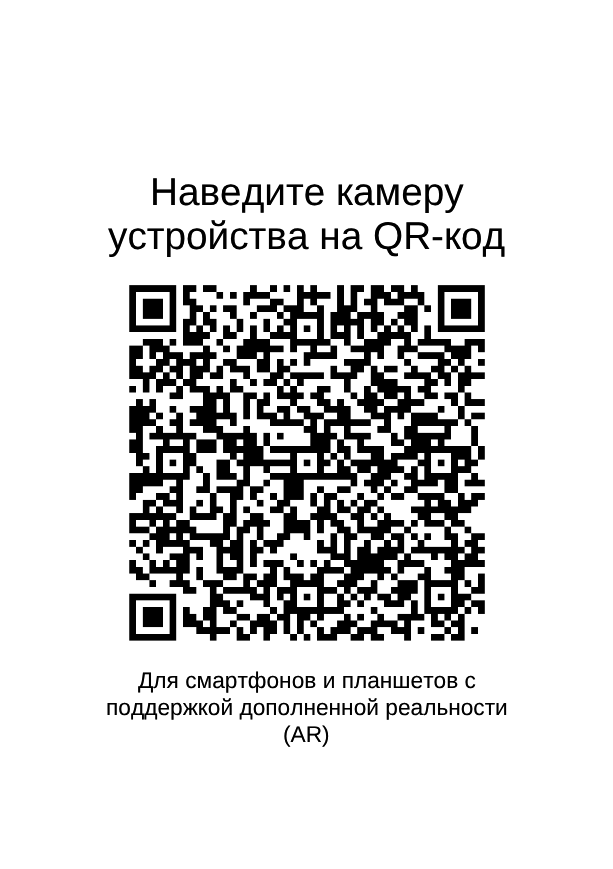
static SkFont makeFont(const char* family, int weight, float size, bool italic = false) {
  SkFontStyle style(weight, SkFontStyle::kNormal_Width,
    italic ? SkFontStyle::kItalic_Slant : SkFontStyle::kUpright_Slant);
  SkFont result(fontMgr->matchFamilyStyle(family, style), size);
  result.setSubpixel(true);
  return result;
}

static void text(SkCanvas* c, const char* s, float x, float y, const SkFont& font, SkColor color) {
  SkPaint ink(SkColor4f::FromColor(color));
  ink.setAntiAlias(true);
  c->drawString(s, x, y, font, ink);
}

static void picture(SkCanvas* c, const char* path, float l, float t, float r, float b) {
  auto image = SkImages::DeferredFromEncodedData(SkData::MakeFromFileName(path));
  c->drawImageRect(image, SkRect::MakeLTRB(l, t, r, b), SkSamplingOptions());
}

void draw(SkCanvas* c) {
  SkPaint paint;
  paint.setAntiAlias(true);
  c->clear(0xffffffff);
  SkFont face1 = makeFont("Liberation Sans", 400, 38.75f);
  text(c, "Наведите камеру", 150, 205, face1, 0xff000000);
  text(c, "устройства на QR-код", 108, 249, face1, 0xff000000);
  picture(c, "img_01.png", 129, 285, 485, 641);
  SkFont face2 = makeFont("Liberation Sans", 400, 22.7f);
  text(c, "Для смартфонов и планшетов с", 138, 688, face2, 0xff000000);
  text(c, "поддержкой дополненной реальности", 106, 715, face2, 0xff000000);
  text(c, "(AR)", 283, 742, face2, 0xff000000);
}
